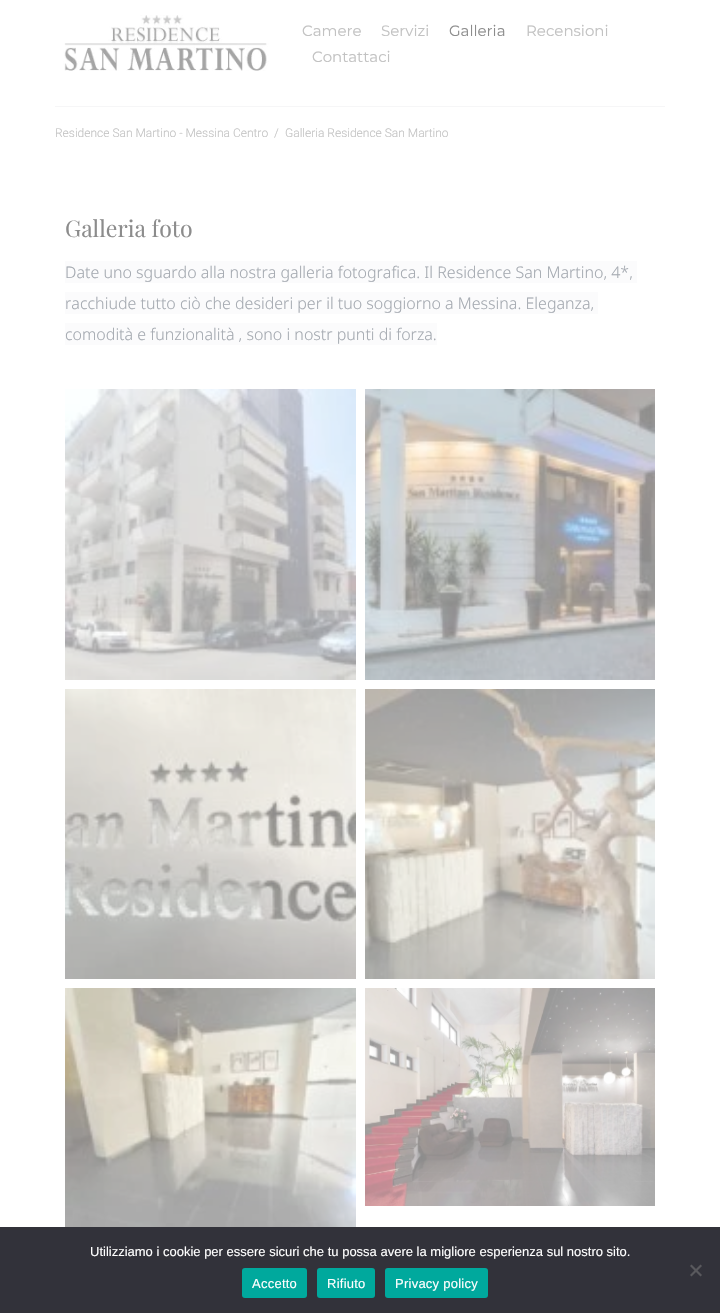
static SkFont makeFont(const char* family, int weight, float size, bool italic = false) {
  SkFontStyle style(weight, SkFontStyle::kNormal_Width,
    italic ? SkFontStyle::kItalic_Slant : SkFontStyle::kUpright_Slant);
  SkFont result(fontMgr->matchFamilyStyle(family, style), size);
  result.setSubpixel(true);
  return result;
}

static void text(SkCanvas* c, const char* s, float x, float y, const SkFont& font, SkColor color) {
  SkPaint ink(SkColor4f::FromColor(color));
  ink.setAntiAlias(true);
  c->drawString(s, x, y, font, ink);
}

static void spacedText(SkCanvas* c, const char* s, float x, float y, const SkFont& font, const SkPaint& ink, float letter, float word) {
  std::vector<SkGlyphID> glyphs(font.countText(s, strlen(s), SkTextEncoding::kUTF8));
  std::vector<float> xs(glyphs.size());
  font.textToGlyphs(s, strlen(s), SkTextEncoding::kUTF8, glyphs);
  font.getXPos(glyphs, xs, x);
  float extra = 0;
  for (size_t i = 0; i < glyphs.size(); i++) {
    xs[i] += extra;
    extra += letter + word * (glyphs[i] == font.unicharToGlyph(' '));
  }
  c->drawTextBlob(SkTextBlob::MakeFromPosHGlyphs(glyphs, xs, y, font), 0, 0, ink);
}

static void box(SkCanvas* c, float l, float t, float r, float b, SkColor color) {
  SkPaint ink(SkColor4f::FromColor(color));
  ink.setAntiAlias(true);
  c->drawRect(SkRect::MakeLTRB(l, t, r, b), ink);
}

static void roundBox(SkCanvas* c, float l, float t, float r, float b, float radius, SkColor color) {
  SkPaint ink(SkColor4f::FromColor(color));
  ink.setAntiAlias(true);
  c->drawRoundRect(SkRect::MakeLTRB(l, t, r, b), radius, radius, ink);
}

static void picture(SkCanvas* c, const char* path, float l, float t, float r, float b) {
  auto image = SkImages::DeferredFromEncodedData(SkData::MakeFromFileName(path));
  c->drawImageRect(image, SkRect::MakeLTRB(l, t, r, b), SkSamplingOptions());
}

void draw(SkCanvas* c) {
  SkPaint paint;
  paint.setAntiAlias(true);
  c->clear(0xffffffff);
  picture(c, "img_01.png", 63, 15, 269, 71);
  SkFont face1 = makeFont("Montserrat", 100, 15);
  text(c, "Camere", 302, 36, face1, 0xffc2c2c2);
  text(c, "Servizi", 381, 36, face1, 0xffc2c2c2);
  text(c, "Galleria", 449, 36, face1, 0xff8c8c8c);
  text(c, "Recensioni", 526, 36, face1, 0xffc2c2c2);
  text(c, "Contattaci", 312, 62, face1, 0xffc2c2c2);
  box(c, 55, 106, 665, 107, 0xfff6f6f7);
  SkFont face2 = makeFont("Roboto", 300, 12);
  text(c, "Residence San Martino - Messina Centro", 55, 137, face2, 0xffc2c2c2);
  text(c, "/", 274, 137, face2, 0xffc2c2c2);
  text(c, "Galleria Residence San Martino", 285, 137, face2, 0xffc2c2c2);
  SkFont face3 = makeFont("Playfair Display", 400, 23);
  text(c, "Galleria foto", 65, 237, face3, 0xff8c8c8c);
  box(c, 65, 261, 637, 283, 0xfffbfbfc);
  SkFont face4 = makeFont("Noto Sans", 300, 16);
  text(c, "Date uno sguardo alla nostra galleria fotografica. Il Residence San Martino, 4*,", 65, 278, face4, 0xffa5aab1);
  box(c, 65, 292, 598, 314, 0xfffbfbfc);
  text(c, "racchiude tutto ciò che desideri per il tuo soggiorno a Messina. Eleganza,", 65, 309, face4, 0xffa5aab1);
  box(c, 65, 323, 437, 345, 0xfffbfbfc);
  text(c, "comodità e funzionalità , sono i nostr punti di forza.", 65, 340, face4, 0xffa5aab1);
  picture(c, "img_02.png", 65, 389, 356, 680);
  picture(c, "img_03.png", 365, 389, 655, 680);
  picture(c, "img_04.png", 65, 689, 356, 979);
  picture(c, "img_05.png", 365, 689, 655, 979);
  picture(c, "img_06.png", 65, 988, 356, 1227);
  picture(c, "img_07.png", 365, 988, 655, 1206);
  box(c, 0, 1227, 720, 1313, 0xff32323a);
  SkFont face5 = makeFont("Liberation Sans", 400, 13);
  text(c, "Utilizziamo i cookie per essere sicuri che tu possa avere la migliore esperienza sul nostro sito.", 90, 1256, face5, 0xffffffff);
  paint.setColor(0xff59595d);
  c->drawPath(SkPathBuilder().moveTo(700.5f, 1264.5f).lineTo(702, 1266).lineTo(691.5f, 1276.5f).lineTo(690, 1275).close().detach(), paint);
  c->drawPath(SkPathBuilder().moveTo(690, 1266).lineTo(691.5f, 1264.5f).lineTo(702, 1275).lineTo(700.5f, 1276.5f).close().detach(), paint);
  roundBox(c, 242, 1268, 307, 1298, 3, 0xff00a99d);
  paint.setColor(0xffffffff);
  spacedText(c, "Accetto", 252, 1288, face5, paint, 0.25f, 0);
  roundBox(c, 317, 1268, 375, 1298, 3, 0xff00a99d);
  spacedText(c, "Rifiuto", 327, 1288, face5, paint, 0.25f, 0);
  roundBox(c, 385, 1268, 488, 1298, 3, 0xff00a99d);
  spacedText(c, "Privacy policy", 395, 1288, face5, paint, 0.25f, 0);
}
